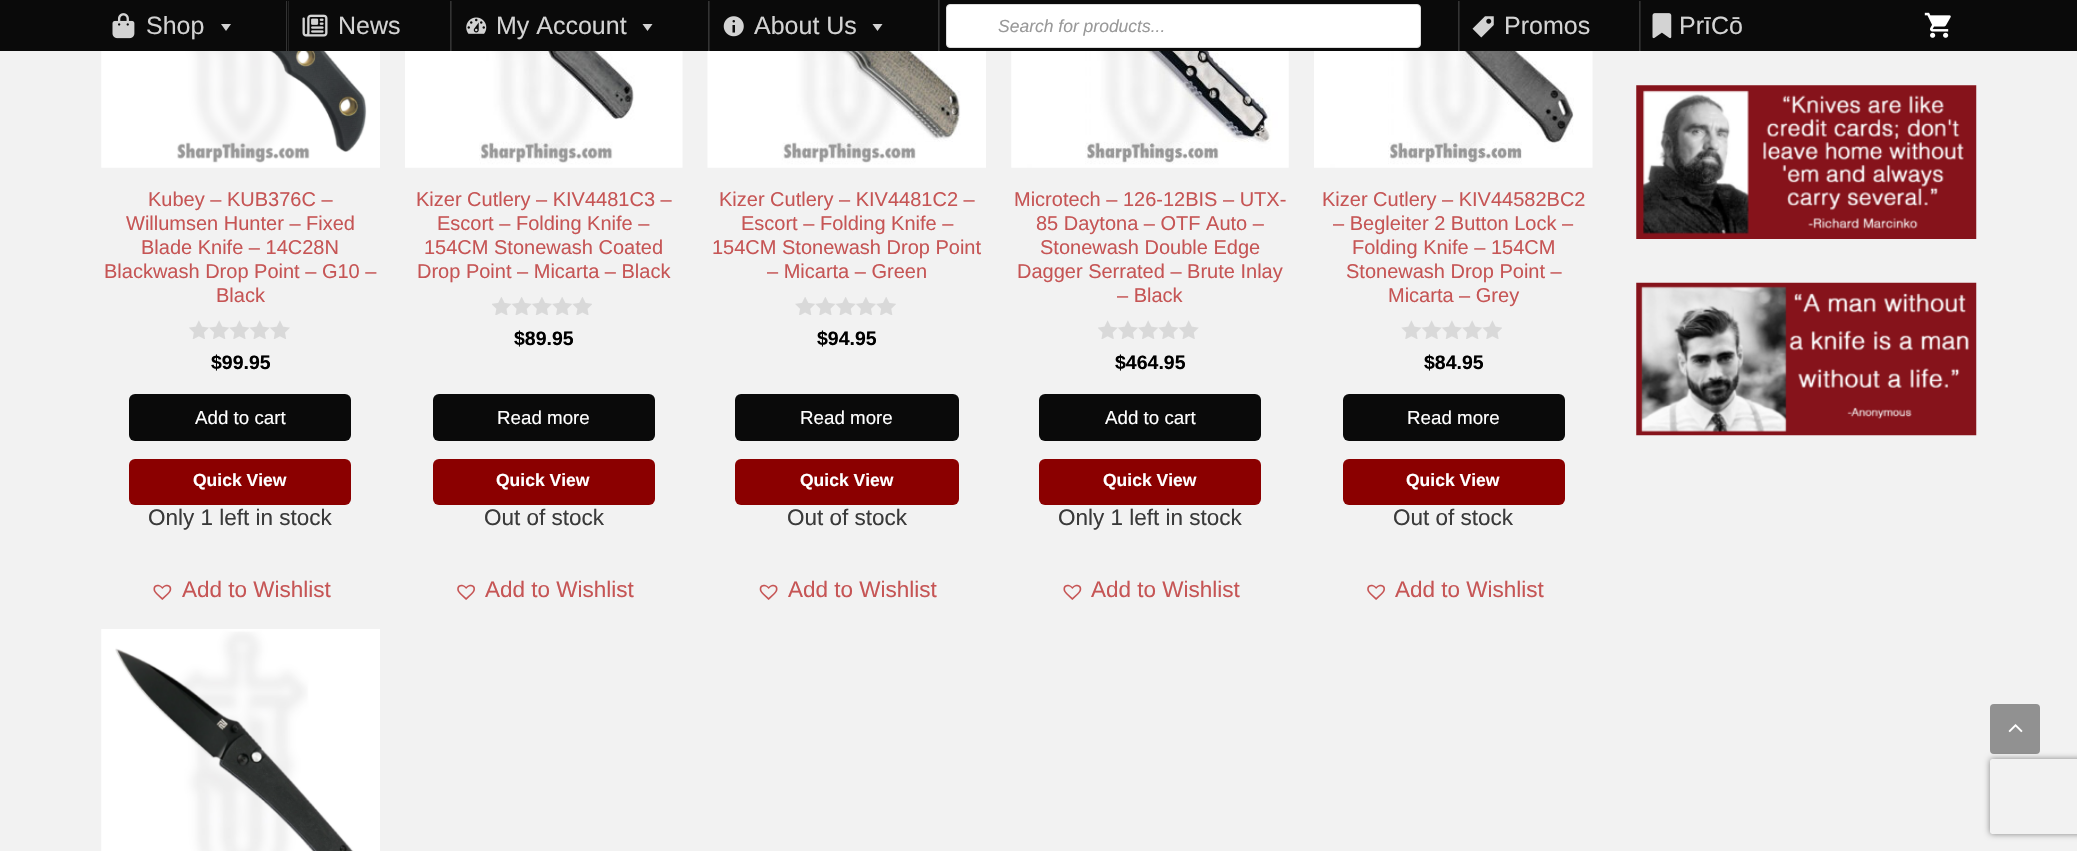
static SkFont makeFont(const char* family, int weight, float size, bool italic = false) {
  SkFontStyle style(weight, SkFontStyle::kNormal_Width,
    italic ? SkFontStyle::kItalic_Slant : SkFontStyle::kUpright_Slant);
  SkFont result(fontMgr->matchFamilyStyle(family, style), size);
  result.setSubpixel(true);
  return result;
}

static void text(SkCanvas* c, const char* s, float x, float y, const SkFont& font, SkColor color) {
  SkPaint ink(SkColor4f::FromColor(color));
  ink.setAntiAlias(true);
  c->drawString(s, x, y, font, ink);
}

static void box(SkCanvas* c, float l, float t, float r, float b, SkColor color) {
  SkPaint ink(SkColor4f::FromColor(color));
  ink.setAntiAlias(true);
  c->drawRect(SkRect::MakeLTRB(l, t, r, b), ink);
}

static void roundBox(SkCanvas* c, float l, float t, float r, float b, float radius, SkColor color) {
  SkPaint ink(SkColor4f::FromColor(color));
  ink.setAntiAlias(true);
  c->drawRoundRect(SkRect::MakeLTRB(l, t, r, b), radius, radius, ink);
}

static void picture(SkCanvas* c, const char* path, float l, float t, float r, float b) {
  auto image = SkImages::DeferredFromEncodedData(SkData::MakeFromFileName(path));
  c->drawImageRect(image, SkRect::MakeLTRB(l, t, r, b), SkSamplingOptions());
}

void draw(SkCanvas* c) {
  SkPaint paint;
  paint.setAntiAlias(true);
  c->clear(0xfff2f2f2);
  box(c, 0, 0, 2077, 51, 0xff0a0a0a);
  picture(c, "img_01.png", 112, 13, 135, 39);
  SkFont face1 = makeFont("Arimo", 400, 25);
  text(c, "Shop", 146, 34, face1, 0xffd3d3d3);
  paint.setColor(0xffd3d3d3);
  c->drawPath(SkPathBuilder().moveTo(231, 24).lineTo(226, 31).lineTo(221, 24).close().detach(), paint);
  box(c, 288, 1, 289, 51, 0xff232323);
  box(c, 286, 1, 287, 51, 0xff333333);
  picture(c, "img_02.png", 302, 14, 328, 37);
  text(c, "News", 338, 34, face1, 0xffd3d3d3);
  box(c, 451, 1, 452, 51, 0xff232323);
  box(c, 450, 1, 451, 51, 0xff333333);
  picture(c, "img_03.png", 466, 17, 487, 34);
  text(c, "My Account", 496, 34, face1, 0xffd3d3d3);
  c->drawPath(SkPathBuilder().moveTo(652.5f, 24).lineTo(647.5f, 31).lineTo(642.5f, 24).close().detach(), paint);
  box(c, 709, 1, 710, 51, 0xff232323);
  box(c, 708, 1, 709, 51, 0xff333333);
  picture(c, "img_04.png", 723, 16, 744, 37);
  text(c, "About Us", 754, 34, face1, 0xffd3d3d3);
  c->drawPath(SkPathBuilder().moveTo(882.5f, 24).lineTo(877.5f, 31).lineTo(872.5f, 24).close().detach(), paint);
  box(c, 939, 0, 940, 51, 0xff232323);
  box(c, 938, 0, 939, 51, 0xff333333);
  paint.setColor(0xffffffff);
  c->drawRoundRect(SkRect::MakeLTRB(946.5f, 4.5f, 1420.5f, 47.5f), 3.5f, 3.5f, paint);
  paint.setStyle(SkPaint::kStroke_Style);
  paint.setStrokeWidth(1);
  paint.setColor(0xffdddddd);
  c->drawRoundRect(SkRect::MakeLTRB(946.5f, 4.5f, 1420.5f, 47.5f), 3.5f, 3.5f, paint);
  SkFont face2 = makeFont("Arimo", 400, 17.5f, true);
  text(c, "Search for products...", 998, 32, face2, 0xff999999);
  box(c, 1459, 1, 1460, 51, 0xff232323);
  box(c, 1458, 1, 1459, 51, 0xff333333);
  picture(c, "img_05.png", 1472, 16, 1494, 38);
  text(c, "Promos", 1504, 34, face1, 0xffd3d3d3);
  box(c, 1640, 1, 1641, 51, 0xff232323);
  box(c, 1639, 1, 1640, 51, 0xff333333);
  picture(c, "img_06.png", 1652, 13, 1672, 39);
  text(c, "PrīCō", 1679, 34, face1, 0xffd3d3d3);
  picture(c, "img_07.png", 1924, 12, 1951, 38);
  picture(c, "img_08.png", 101, 51, 380, 168);
  SkFont face3 = makeFont("Arimo", 400, 20);
  text(c, "Kubey – KUB376C –", 148, 206, face3, 0xffc65555);
  text(c, "Willumsen Hunter – Fixed", 126, 230, face3, 0xffc65555);
  text(c, "Blade Knife – 14C28N", 141, 254, face3, 0xffc65555);
  text(c, "Blackwash Drop Point – G10 –", 104, 278, face3, 0xffc65555);
  text(c, "Black", 216, 302, face3, 0xffc65555);
  picture(c, "img_09.png", 189, 320, 290, 339);
  SkFont face4 = makeFont("Arimo", 700, 19.5f);
  text(c, "$99.95", 211, 369, face4, 0xff000000);
  roundBox(c, 129, 394, 351, 441, 6, 0xff0a0a0a);
  SkFont face5 = makeFont("Arimo", 400, 18.75f);
  text(c, "Add to cart", 195, 424, face5, 0xffffffff);
  roundBox(c, 129, 459, 351, 505, 6, 0xff8b0000);
  SkFont face6 = makeFont("Arimo", 700, 17.5f);
  text(c, "Quick View", 193, 486, face6, 0xffffffff);
  SkFont face7 = makeFont("Arimo", 400, 22.5f);
  text(c, "Only 1 left in stock", 148, 525, face7, 0xff3a3a3a);
  picture(c, "img_10.png", 153, 584, 172, 600);
  text(c, "Add to Wishlist", 182, 597, face7, 0xffc65555);
  picture(c, "img_11.png", 405, 51, 683, 168);
  text(c, "Kizer Cutlery – KIV4481C3 –", 416, 206, face3, 0xffc65555);
  text(c, "Escort – Folding Knife –", 437, 230, face3, 0xffc65555);
  text(c, "154CM Stonewash Coated", 424, 254, face3, 0xffc65555);
  text(c, "Drop Point – Micarta – Black", 417, 278, face3, 0xffc65555);
  picture(c, "img_12.png", 492, 297, 592, 315);
  text(c, "$89.95", 514, 345, face4, 0xff000000);
  roundBox(c, 433, 394, 655, 441, 6, 0xff0a0a0a);
  text(c, "Read more", 497, 424, face5, 0xffffffff);
  roundBox(c, 433, 459, 655, 505, 6, 0xff8b0000);
  text(c, "Quick View", 496, 486, face6, 0xffffffff);
  text(c, "Out of stock", 484, 525, face7, 0xff3a3a3a);
  picture(c, "img_13.png", 457, 584, 475, 600);
  text(c, "Add to Wishlist", 485, 597, face7, 0xffc65555);
  picture(c, "img_14.png", 707, 51, 986, 168);
  text(c, "Kizer Cutlery – KIV4481C2 –", 719, 206, face3, 0xffc65555);
  text(c, "Escort – Folding Knife –", 741, 230, face3, 0xffc65555);
  text(c, "154CM Stonewash Drop Point", 712, 254, face3, 0xffc65555);
  text(c, "– Micarta – Green", 767, 278, face3, 0xffc65555);
  picture(c, "img_15.png", 795, 297, 896, 315);
  text(c, "$94.95", 817, 345, face4, 0xff000000);
  roundBox(c, 735, 394, 959, 441, 6, 0xff0a0a0a);
  text(c, "Read more", 800, 424, face5, 0xffffffff);
  roundBox(c, 735, 459, 959, 505, 6, 0xff8b0000);
  text(c, "Quick View", 800, 486, face6, 0xffffffff);
  text(c, "Out of stock", 787, 525, face7, 0xff3a3a3a);
  picture(c, "img_16.png", 759, 584, 778, 600);
  text(c, "Add to Wishlist", 788, 597, face7, 0xffc65555);
  picture(c, "img_17.png", 1011, 51, 1289, 168);
  text(c, "Microtech – 126-12BIS – UTX-", 1014, 206, face3, 0xffc65555);
  text(c, "85 Daytona – OTF Auto –", 1036, 230, face3, 0xffc65555);
  text(c, "Stonewash Double Edge", 1040, 254, face3, 0xffc65555);
  text(c, "Dagger Serrated – Brute Inlay", 1017, 278, face3, 0xffc65555);
  text(c, "– Black", 1117, 302, face3, 0xffc65555);
  picture(c, "img_18.png", 1098, 320, 1199, 339);
  text(c, "$464.95", 1115, 369, face4, 0xff000000);
  roundBox(c, 1039, 394, 1261, 441, 6, 0xff0a0a0a);
  text(c, "Add to cart", 1105, 424, face5, 0xffffffff);
  roundBox(c, 1039, 459, 1261, 505, 6, 0xff8b0000);
  text(c, "Quick View", 1103, 486, face6, 0xffffffff);
  text(c, "Only 1 left in stock", 1058, 525, face7, 0xff3a3a3a);
  picture(c, "img_10.png", 1063, 584, 1082, 600);
  text(c, "Add to Wishlist", 1091, 597, face7, 0xffc65555);
  picture(c, "img_19.png", 1314, 51, 1593, 168);
  text(c, "Kizer Cutlery – KIV44582BC2", 1322, 206, face3, 0xffc65555);
  text(c, "– Begleiter 2 Button Lock –", 1333, 230, face3, 0xffc65555);
  text(c, "Folding Knife – 154CM", 1352, 254, face3, 0xffc65555);
  text(c, "Stonewash Drop Point –", 1346, 278, face3, 0xffc65555);
  text(c, "Micarta – Grey", 1388, 302, face3, 0xffc65555);
  picture(c, "img_20.png", 1401, 320, 1502, 339);
  text(c, "$84.95", 1424, 369, face4, 0xff000000);
  roundBox(c, 1343, 394, 1565, 441, 6, 0xff0a0a0a);
  text(c, "Read more", 1407, 424, face5, 0xffffffff);
  roundBox(c, 1343, 459, 1565, 505, 6, 0xff8b0000);
  text(c, "Quick View", 1406, 486, face6, 0xffffffff);
  text(c, "Out of stock", 1393, 525, face7, 0xff3a3a3a);
  picture(c, "img_13.png", 1367, 584, 1385, 600);
  text(c, "Add to Wishlist", 1395, 597, face7, 0xffc65555);
  picture(c, "img_21.png", 101, 629, 380, 851);
  picture(c, "img_22.png", 1636, 85, 1977, 239);
  picture(c, "img_23.png", 1636, 282, 1977, 436);
  c->save();
  c->clipPath(SkPathBuilder(SkPathFillType::kEvenOdd).moveTo(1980, 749).lineTo(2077, 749).lineTo(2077, 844).lineTo(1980, 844).close().moveTo(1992.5f, 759).lineTo(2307.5f, 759).cubicTo(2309, 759, 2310, 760, 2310, 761.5f).lineTo(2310, 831.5f).cubicTo(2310, 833, 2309, 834, 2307.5f, 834).lineTo(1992.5f, 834).cubicTo(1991, 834, 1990, 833, 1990, 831.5f).lineTo(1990, 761.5f).cubicTo(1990, 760, 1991, 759, 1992.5f, 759).close().detach(), true);
  paint.setStyle(SkPaint::kFill_Style);
  paint.setColor(0xff808080);
  paint.setMaskFilter(SkMaskFilter::MakeBlur(kNormal_SkBlurStyle, 3));
  c->drawRoundRect(SkRect::MakeLTRB(1990, 759, 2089, 834), 2.5f, 2.5f, paint);
  paint.setMaskFilter(nullptr);
  c->restore();
  roundBox(c, 1990, 704, 2040, 754, 4, 0x66000000);
  picture(c, "img_24.png", 2008, 724, 2023, 733);
}
